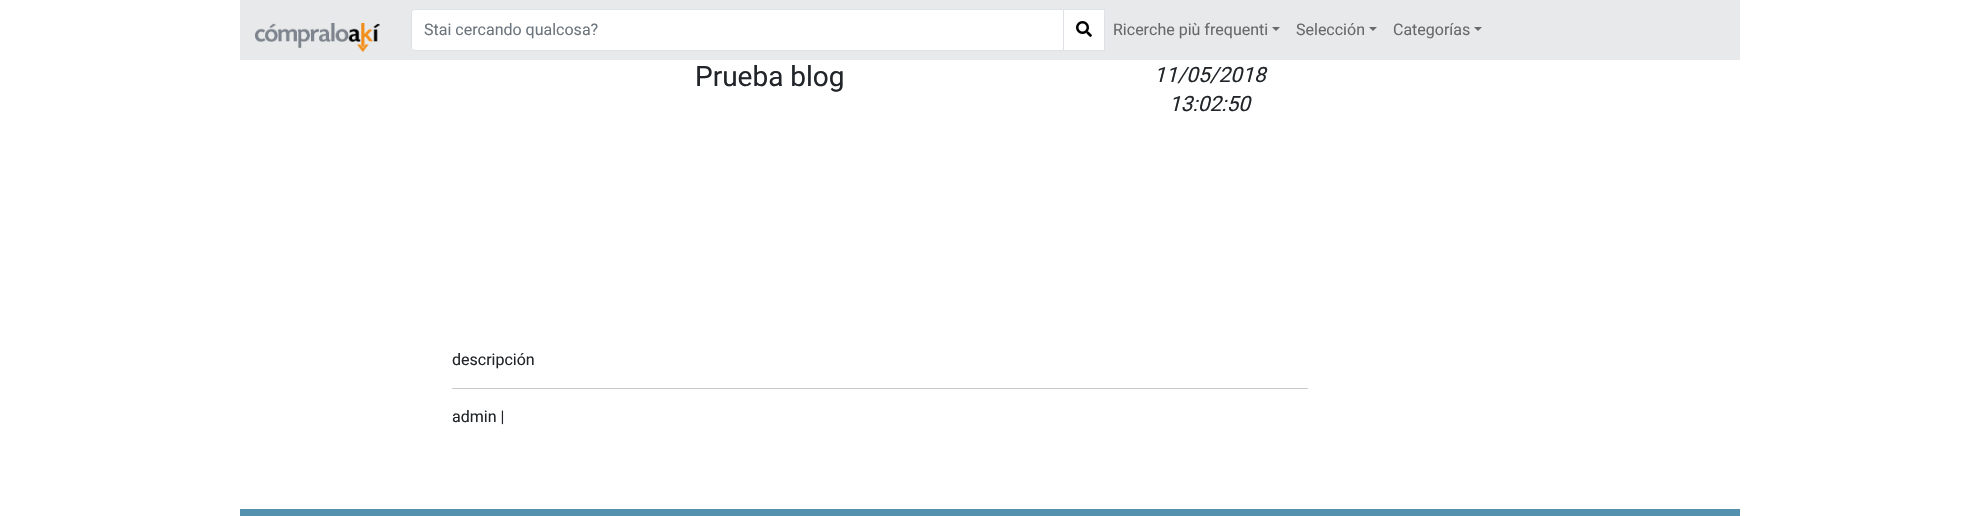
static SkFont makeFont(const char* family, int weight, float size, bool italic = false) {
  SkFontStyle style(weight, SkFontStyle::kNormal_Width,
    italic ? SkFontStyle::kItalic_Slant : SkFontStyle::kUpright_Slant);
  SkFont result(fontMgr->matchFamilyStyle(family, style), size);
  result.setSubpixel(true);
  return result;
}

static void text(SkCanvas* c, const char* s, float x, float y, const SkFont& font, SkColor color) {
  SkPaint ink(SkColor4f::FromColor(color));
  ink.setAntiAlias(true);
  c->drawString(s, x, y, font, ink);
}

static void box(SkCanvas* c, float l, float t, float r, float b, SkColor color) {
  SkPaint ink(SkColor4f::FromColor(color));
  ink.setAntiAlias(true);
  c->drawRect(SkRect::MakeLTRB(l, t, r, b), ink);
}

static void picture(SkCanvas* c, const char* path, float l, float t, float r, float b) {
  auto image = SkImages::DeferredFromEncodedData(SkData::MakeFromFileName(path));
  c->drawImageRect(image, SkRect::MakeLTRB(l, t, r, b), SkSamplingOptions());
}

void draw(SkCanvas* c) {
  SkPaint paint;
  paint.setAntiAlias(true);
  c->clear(0xffffffff);
  box(c, 240, 0, 1740, 60, 0xffe8e9ea);
  picture(c, "img_01.png", 255, 23, 380, 52);
  paint.setColor(0xffffffff);
  c->drawPath(SkPathBuilder().moveTo(415, 9.5f).lineTo(1063.5f, 9.5f).lineTo(1063.5f, 50.5f).lineTo(415, 50.5f).cubicTo(413, 50.5f, 411.5f, 49, 411.5f, 47).lineTo(411.5f, 13).cubicTo(411.5f, 11, 413, 9.5f, 415, 9.5f).close().detach(), paint);
  paint.setStyle(SkPaint::kStroke_Style);
  paint.setStrokeWidth(1);
  paint.setColor(0xffdee2e6);
  c->drawPath(SkPathBuilder().moveTo(415, 9.5f).lineTo(1063.5f, 9.5f).lineTo(1063.5f, 50.5f).lineTo(415, 50.5f).cubicTo(413, 50.5f, 411.5f, 49, 411.5f, 47).lineTo(411.5f, 13).cubicTo(411.5f, 11, 413, 9.5f, 415, 9.5f).close().detach(), paint);
  SkFont face1 = makeFont("Roboto", 400, 16);
  text(c, "Stai cercando qualcosa?", 424, 35, face1, 0xff6c757d);
  paint.setStyle(SkPaint::kFill_Style);
  paint.setColor(0xffffffff);
  c->drawRect(SkRect::MakeLTRB(1063.5f, 9.5f, 1104.5f, 50.5f), paint);
  paint.setStyle(SkPaint::kStroke_Style);
  paint.setColor(0xffdee2e6);
  c->drawRect(SkRect::MakeLTRB(1063.5f, 9.5f, 1104.5f, 50.5f), paint);
  picture(c, "img_02.png", 1076, 21, 1092, 37);
  text(c, "Ricerche più frequenti", 1113, 35, face1, 0xff686969);
  paint.setStyle(SkPaint::kFill_Style);
  paint.setColor(0xff686969);
  c->drawPath(SkPathBuilder().moveTo(1272, 27).lineTo(1280, 27).lineTo(1276, 31).close().detach(), paint);
  text(c, "Selección", 1296, 35, face1, 0xff686969);
  c->drawPath(SkPathBuilder().moveTo(1369, 27).lineTo(1377, 27).lineTo(1373, 31).close().detach(), paint);
  text(c, "Categorías", 1393, 35, face1, 0xff686969);
  c->drawPath(SkPathBuilder().moveTo(1474, 27).lineTo(1482, 27).lineTo(1478, 31).close().detach(), paint);
  SkFont face2 = makeFont("Roboto", 400, 28);
  text(c, "Prueba blog", 695, 86, face2, 0xff212529);
  SkFont face3 = makeFont("Roboto", 400, 21, true);
  text(c, "11/05/2018", 1154, 82, face3, 0xff212529);
  text(c, "13:02:50", 1169, 111, face3, 0xff212529);
  text(c, "descripción", 452, 365, face1, 0xff212529);
  box(c, 452, 388, 1308, 389, 0xffc8c9ca);
  text(c, "admin |", 452, 422, face1, 0xff212529);
  box(c, 240, 509, 1740, 516, 0xff5391af);
}
